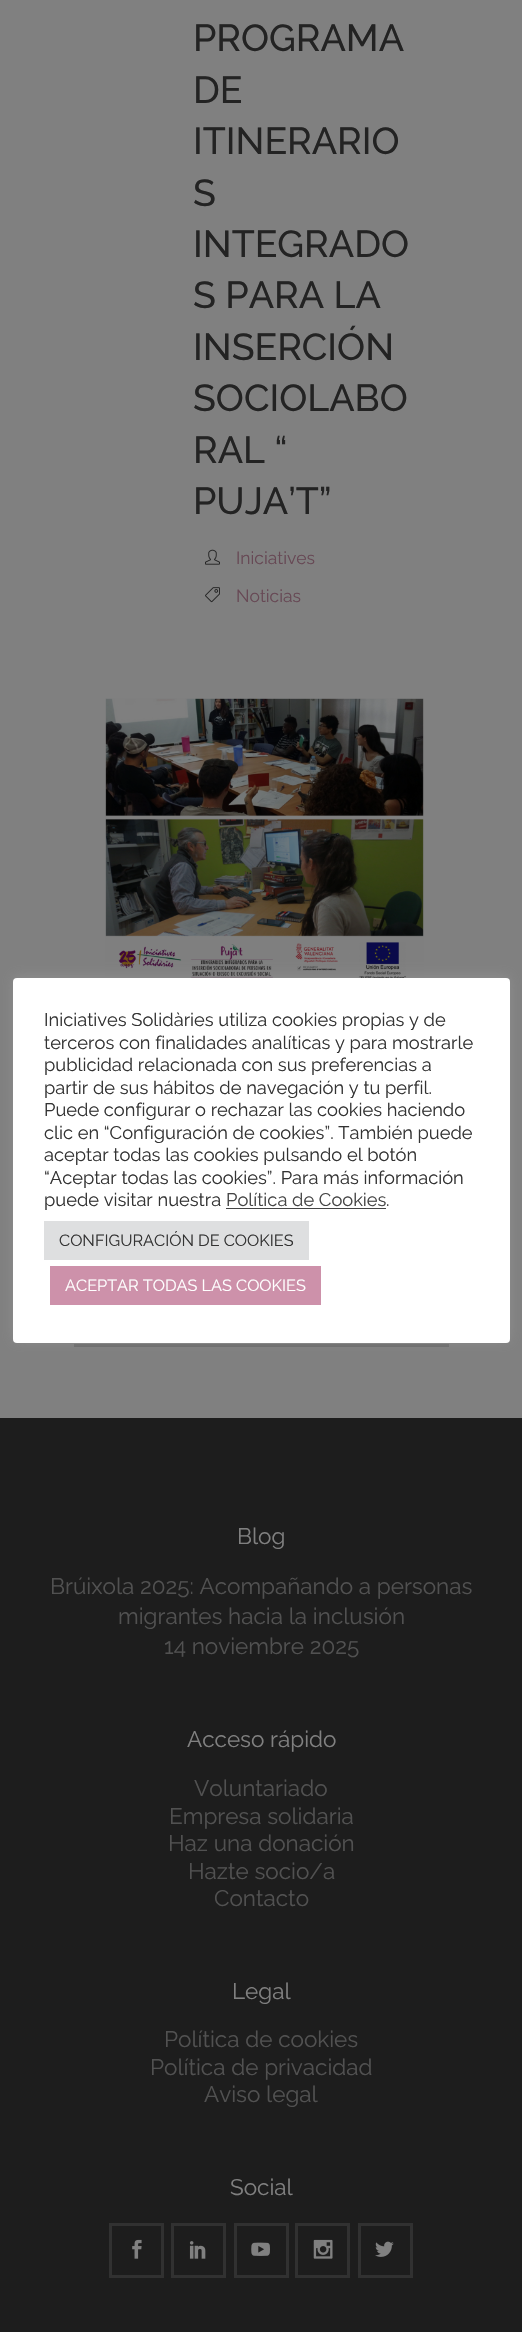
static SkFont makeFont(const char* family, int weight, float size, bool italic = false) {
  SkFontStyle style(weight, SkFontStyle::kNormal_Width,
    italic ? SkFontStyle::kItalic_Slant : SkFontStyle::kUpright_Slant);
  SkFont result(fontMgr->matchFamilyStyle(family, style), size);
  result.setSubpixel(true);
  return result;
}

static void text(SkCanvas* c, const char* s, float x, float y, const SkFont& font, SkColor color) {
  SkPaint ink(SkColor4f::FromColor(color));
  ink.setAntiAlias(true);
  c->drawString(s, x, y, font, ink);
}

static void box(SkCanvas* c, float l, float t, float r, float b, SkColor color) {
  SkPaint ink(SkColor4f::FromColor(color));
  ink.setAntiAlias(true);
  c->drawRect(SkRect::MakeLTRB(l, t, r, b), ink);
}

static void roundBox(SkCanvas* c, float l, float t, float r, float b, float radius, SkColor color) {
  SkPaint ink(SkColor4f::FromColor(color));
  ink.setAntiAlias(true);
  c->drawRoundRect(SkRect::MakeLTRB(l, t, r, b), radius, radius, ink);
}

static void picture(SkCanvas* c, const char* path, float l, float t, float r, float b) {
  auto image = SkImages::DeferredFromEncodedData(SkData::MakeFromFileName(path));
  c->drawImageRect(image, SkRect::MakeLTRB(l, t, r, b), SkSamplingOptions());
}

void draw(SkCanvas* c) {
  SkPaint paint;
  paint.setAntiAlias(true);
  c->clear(0xff808080);
  box(c, 74, 1344, 449, 1347, 0xff6d6d6d);
  SkFont face1 = makeFont("Raleway", 500, 37.5f);
  text(c, "PROGRAMA", 193, 51, face1, 0xff232323);
  text(c, "DE", 193, 103, face1, 0xff232323);
  text(c, "ITINERARIO", 193, 154, face1, 0xff232323);
  text(c, "S", 193, 206, face1, 0xff232323);
  text(c, "INTEGRADO", 193, 257, face1, 0xff232323);
  text(c, "S PARA LA", 193, 308, face1, 0xff232323);
  text(c, "INSERCIÓN", 193, 360, face1, 0xff232323);
  text(c, "SOCIOLABO", 193, 411, face1, 0xff232323);
  text(c, "RAL “", 193, 463, face1, 0xff232323);
  text(c, "PUJA’T”", 193, 514, face1, 0xff232323);
  picture(c, "img_01.png", 205, 549, 220, 565);
  SkFont face2 = makeFont("Raleway", 400, 17.5f);
  text(c, "Iniciatives", 236, 564, face2, 0xff674955);
  picture(c, "img_02.png", 205, 587, 220, 603);
  text(c, "Noticias", 236, 602, face2, 0xff674955);
  picture(c, "img_03.png", 105, 698, 424, 978);
  box(c, 0, 1418, 522, 2332, 0xff1d1d1d);
  SkFont face3 = makeFont("Raleway", 400, 22.5f);
  text(c, "Blog", 237, 1544, face3, 0xff808080);
  text(c, "Brúixola 2025: Acompañando a personas", 50, 1594, face3, 0xff515151);
  text(c, "migrantes hacia la inclusión", 118, 1624, face3, 0xff515151);
  text(c, "14 noviembre 2025", 164, 1654, face3, 0xff515151);
  text(c, "Acceso rápido", 187, 1747, face3, 0xff808080);
  text(c, "Voluntariado", 194, 1796, face3, 0xff515151);
  text(c, "Empresa solidaria", 169, 1824, face3, 0xff515151);
  text(c, "Haz una donación", 168, 1851, face3, 0xff515151);
  text(c, "Hazte socio/a", 188, 1879, face3, 0xff515151);
  text(c, "Contacto", 214, 1906, face3, 0xff515151);
  text(c, "Legal", 232, 1999, face3, 0xff808080);
  text(c, "Política de cookies", 164, 2047, face3, 0xff515151);
  text(c, "Política de privacidad", 150, 2075, face3, 0xff515151);
  text(c, "Aviso legal", 204, 2102, face3, 0xff515151);
  text(c, "Social", 230, 2195, face3, 0xff808080);
  paint.setStyle(SkPaint::kStroke_Style);
  paint.setStrokeWidth(3);
  paint.setColor(0xff313131);
  c->drawRect(SkRect::MakeLTRB(110.5f, 2224.5f, 162.5f, 2276.5f), paint);
  picture(c, "img_04.png", 132, 2239, 142, 2259);
  c->drawRect(SkRect::MakeLTRB(172.5f, 2224.5f, 224.5f, 2276.5f), paint);
  picture(c, "img_05.png", 189, 2241, 206, 2259);
  c->drawRect(SkRect::MakeLTRB(235.5f, 2224.5f, 287.5f, 2276.5f), paint);
  picture(c, "img_06.png", 251, 2242, 270, 2256);
  c->drawRect(SkRect::MakeLTRB(296.5f, 2224.5f, 348.5f, 2276.5f), paint);
  picture(c, "img_07.png", 313, 2239, 333, 2259);
  c->drawRect(SkRect::MakeLTRB(359.5f, 2224.5f, 411.5f, 2276.5f), paint);
  picture(c, "img_08.png", 375, 2241, 394, 2257);
  paint.setStyle(SkPaint::kFill_Style);
  paint.setColor(0x4dacabab);
  paint.setMaskFilter(SkMaskFilter::MakeBlur(kNormal_SkBlurStyle, 6));
  c->drawRoundRect(SkRect::MakeLTRB(13, 976, 510, 1341), 4, 4, paint);
  paint.setMaskFilter(nullptr);
  roundBox(c, 13, 978, 510, 1343, 4, 0xffffffff);
  SkFont face4 = makeFont("Raleway", 400, 18.3f);
  text(c, "Iniciatives Solidàries utiliza cookies propias y de", 44, 1026, face4, 0xff333333);
  text(c, "terceros con finalidades analíticas y para mostrarle", 44, 1049, face4, 0xff333333);
  text(c, "publicidad relacionada con sus preferencias a", 44, 1071, face4, 0xff333333);
  text(c, "partir de sus hábitos de navegación y tu perfil.", 44, 1094, face4, 0xff333333);
  text(c, "Puede configurar o rechazar las cookies haciendo", 44, 1116, face4, 0xff333333);
  text(c, "clic en “Configuración de cookies”. También puede", 44, 1139, face4, 0xff333333);
  text(c, "aceptar todas las cookies pulsando el botón", 44, 1161, face4, 0xff333333);
  text(c, "“Aceptar todas las cookies”. Para más información", 44, 1184, face4, 0xff333333);
  text(c, "puede visitar nuestra", 44, 1206, face4, 0xff333333);
  text(c, "Política de Cookies", 226, 1206, face4, 0xff444444);
  box(c, 226, 1208, 386, 1209, 0xff444444);
  text(c, ".", 386, 1206, face4, 0xff333333);
  box(c, 44, 1221, 309, 1260, 0xffdedfe0);
  SkFont face5 = makeFont("Raleway", 400, 16.25f);
  text(c, "CONFIGURACIÓN DE COOKIES", 59, 1246, face5, 0xff333333);
  box(c, 50, 1266, 321, 1305, 0xffcd91aa);
  text(c, "ACEPTAR TODAS LAS COOKIES", 65, 1291, face5, 0xffffffff);
}
